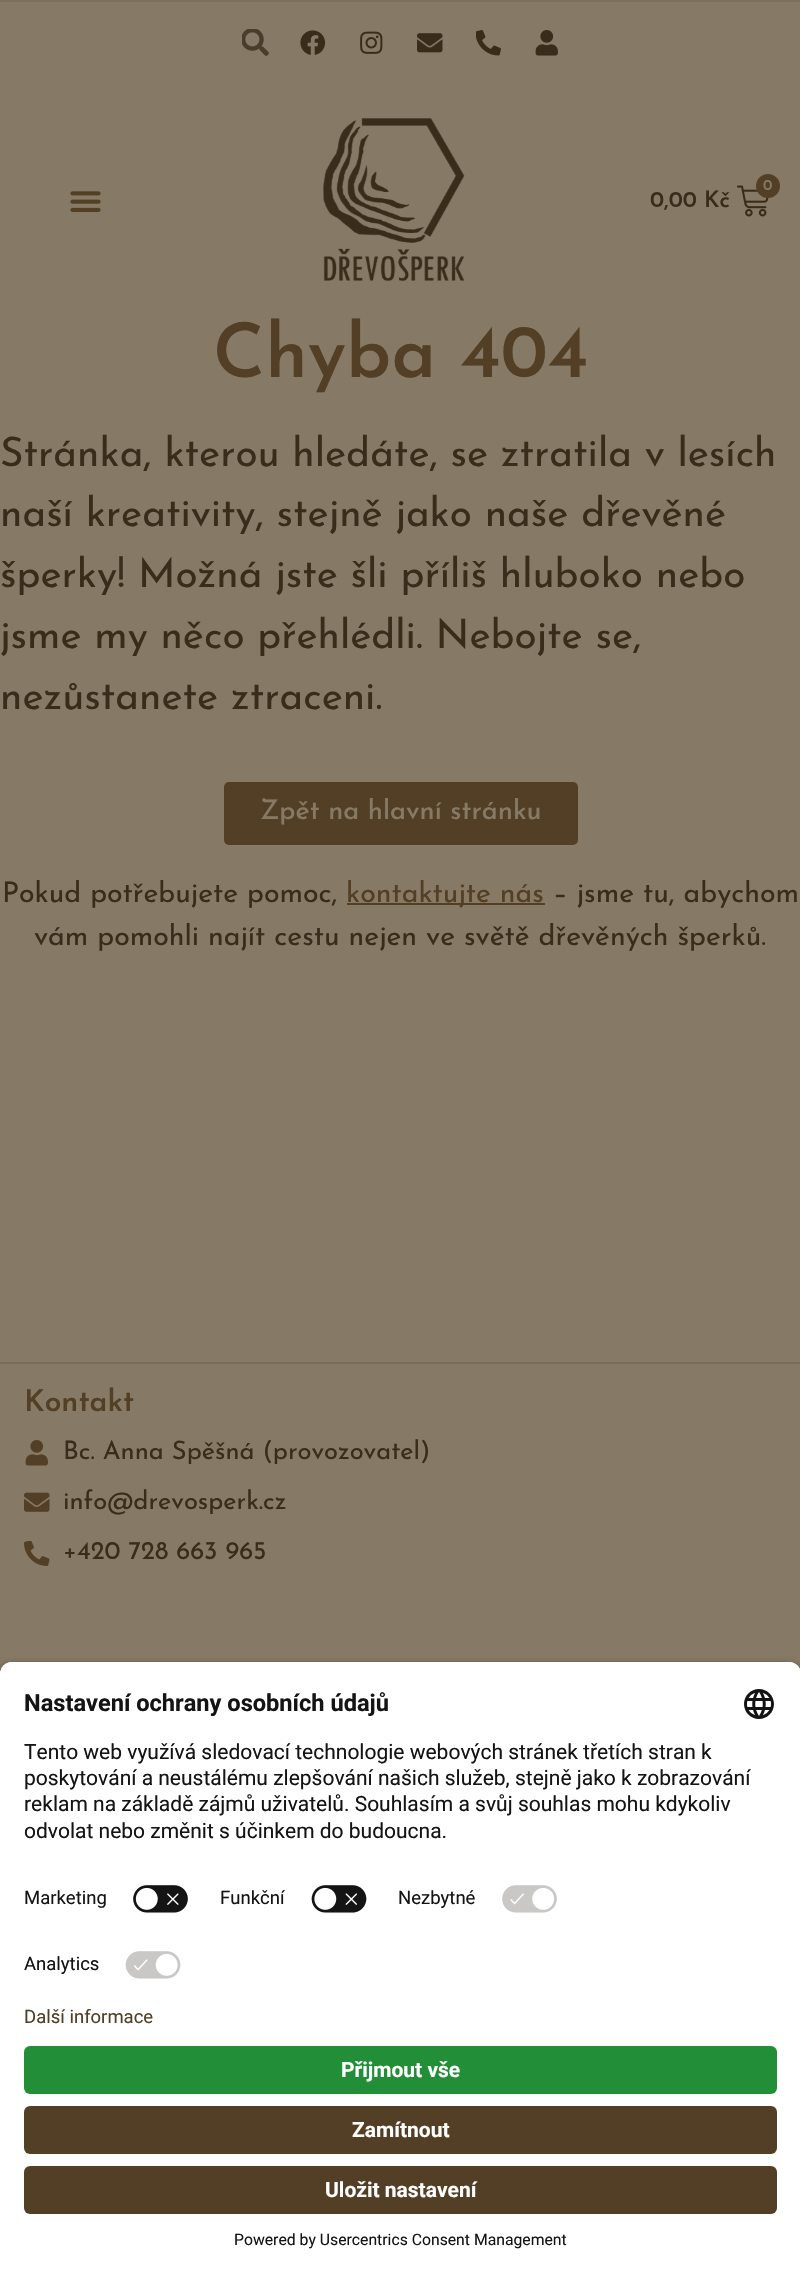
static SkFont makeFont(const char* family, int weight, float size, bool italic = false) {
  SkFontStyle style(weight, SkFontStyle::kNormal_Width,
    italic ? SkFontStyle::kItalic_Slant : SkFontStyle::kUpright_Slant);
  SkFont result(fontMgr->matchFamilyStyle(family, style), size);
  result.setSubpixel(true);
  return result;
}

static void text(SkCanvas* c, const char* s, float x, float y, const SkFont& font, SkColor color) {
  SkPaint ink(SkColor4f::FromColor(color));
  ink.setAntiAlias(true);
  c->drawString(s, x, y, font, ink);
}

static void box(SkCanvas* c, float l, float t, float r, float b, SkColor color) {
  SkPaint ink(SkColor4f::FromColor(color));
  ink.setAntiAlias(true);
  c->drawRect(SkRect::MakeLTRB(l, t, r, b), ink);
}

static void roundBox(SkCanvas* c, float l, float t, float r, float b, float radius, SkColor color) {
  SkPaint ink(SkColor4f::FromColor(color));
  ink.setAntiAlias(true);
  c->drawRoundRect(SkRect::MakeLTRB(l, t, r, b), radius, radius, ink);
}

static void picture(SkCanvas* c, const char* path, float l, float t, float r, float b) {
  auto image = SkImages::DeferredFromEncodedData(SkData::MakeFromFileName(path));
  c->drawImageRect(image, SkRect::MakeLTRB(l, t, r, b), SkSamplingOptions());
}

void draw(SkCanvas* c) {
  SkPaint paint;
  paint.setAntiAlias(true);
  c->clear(0xff867966);
  box(c, 0, 0, 800, 2, 0xff7d6f5d);
  picture(c, "img_01.png", 242, 29, 269, 56);
  picture(c, "img_02.png", 300, 30, 326, 55);
  picture(c, "img_03.png", 360, 31, 383, 54);
  picture(c, "img_04.png", 417, 33, 443, 53);
  picture(c, "img_05.png", 476, 30, 501, 56);
  picture(c, "img_06.png", 535, 30, 558, 56);
  picture(c, "img_07.png", 70, 191, 101, 212);
  picture(c, "img_08.png", 323, 118, 465, 281);
  picture(c, "img_09.png", 737, 185, 769, 217);
  paint.setColor(0xff523f25);
  c->drawCircle(768, 186, 12, paint);
  SkFont face1 = makeFont("Josefin Sans", 600, 15);
  text(c, "0", 763, 190, face1, 0xff867966);
  SkFont face2 = makeFont("Josefin Sans", 600, 22.5f);
  text(c, "0,00 Kč", 650, 207, face2, 0xff392c1a);
  SkFont face3 = makeFont("Josefin Sans", 600, 75);
  text(c, "Chyba 404", 213, 377, face3, 0xff523f25);
  SkFont face4 = makeFont("Josefin Sans", 400, 40.5f);
  text(c, "Stránka, kterou hledáte, se ztratila v lesích", 0, 466, face4, 0xff392c1a);
  text(c, "naší kreativity, stejně jako naše dřevěné", 0, 526, face4, 0xff392c1a);
  text(c, "šperky! Možná jste šli příliš hluboko nebo", 0, 587, face4, 0xff392c1a);
  text(c, "jsme my něco přehlédli. Nebojte se,", 0, 648, face4, 0xff392c1a);
  text(c, "nezůstanete ztraceni.", 0, 709, face4, 0xff392c1a);
  roundBox(c, 224, 782, 578, 845, 5, 0xff523f25);
  SkFont face5 = makeFont("Josefin Sans", 500, 27);
  text(c, "Zpět na hlavní stránku", 260, 819, face5, 0xff867966);
  SkFont face6 = makeFont("Josefin Sans", 400, 28.5f);
  text(c, "Pokud potřebujete pomoc,", 2, 902, face6, 0xff392c1a);
  box(c, 347, 903, 545, 905, 0xff523f25);
  text(c, "kontaktujte nás", 346, 902, face6, 0xff523f25);
  text(c, "– jsme tu, abychom", 553, 902, face6, 0xff392c1a);
  text(c, "vám pomohli najít cestu nejen ve světě dřevěných šperků.", 34, 945, face6, 0xff392c1a);
  box(c, 0, 1362, 800, 1364, 0xff796c5a);
  SkFont face7 = makeFont("Josefin Sans", 600, 30);
  text(c, "Kontakt", 24, 1411, face7, 0xff523f25);
  picture(c, "img_10.png", 25, 1440, 48, 1466);
  SkFont face8 = makeFont("Josefin Sans", 400, 25.5f);
  text(c, "Bc. Anna Spěšná (provozovatel)", 63, 1459, face8, 0xff392c1a);
  picture(c, "img_11.png", 24, 1492, 50, 1512);
  text(c, "info@drevosperk.cz", 63, 1509, face8, 0xff392c1a);
  picture(c, "img_12.png", 24, 1541, 50, 1566);
  text(c, "+420 728 663 965", 63, 1559, face8, 0xff392c1a);
  paint.setColor(0xcc000000);
  paint.setMaskFilter(SkMaskFilter::MakeBlur(kNormal_SkBlurStyle, 5));
  c->drawRoundRect(SkRect::MakeLTRB(0, 1667, 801, 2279), 12, 12, paint);
  paint.setMaskFilter(nullptr);
  paint.setColor(0xffffffff);
  c->drawPath(SkPathBuilder().moveTo(12, 1662).lineTo(789, 1662).cubicTo(795.5f, 1662, 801, 1667.5f, 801, 1674).lineTo(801, 2007).lineTo(0, 2007).lineTo(0, 1674).cubicTo(0, 1667.5f, 5.5f, 1662, 12, 1662).close().detach(), paint);
  c->drawPath(SkPathBuilder().moveTo(12, 1662).lineTo(789, 1662).cubicTo(795.5f, 1662, 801, 1667.5f, 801, 1674).lineTo(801, 1875).lineTo(0, 1875).lineTo(0, 1674).cubicTo(0, 1667.5f, 5.5f, 1662, 12, 1662).close().detach(), paint);
  SkFont face9 = makeFont("Roboto", 700, 23.6f);
  text(c, "Nastavení ochrany osobních údajů", 24, 1711, face9, 0xff141414);
  picture(c, "img_13.png", 744, 1689, 774, 1719);
  SkFont face10 = makeFont("Roboto", 400, 21);
  text(c, "Tento web využívá sledovací technologie webových stránek třetích stran k", 24, 1759, face10, 0xff141414);
  text(c, "poskytování a neustálému zlepšování našich služeb, stejně jako k zobrazování", 24, 1785, face10, 0xff141414);
  text(c, "reklam na základě zájmů uživatelů. Souhlasím a svůj souhlas mohu kdykoliv", 24, 1811, face10, 0xff141414);
  text(c, "odvolat nebo změnit s účinkem do budoucna.", 24, 1838, face10, 0xff141414);
  SkFont face11 = makeFont("Roboto", 400, 18.5f);
  text(c, "Marketing", 24, 1904, face11, 0xff141414);
  picture(c, "img_14.png", 132, 1884, 189, 1914);
  text(c, "Funkční", 220, 1904, face11, 0xff141414);
  picture(c, "img_15.png", 311, 1885, 367, 1914);
  text(c, "Nezbytné", 398, 1904, face11, 0xff141414);
  picture(c, "img_16.png", 502, 1885, 557, 1913);
  text(c, "Analytics", 24, 1970, face11, 0xff141414);
  picture(c, "img_17.png", 125, 1951, 181, 1979);
  box(c, 0, 2007, 800, 2274, 0xffffffff);
  text(c, "Další informace", 24, 2023, face11, 0xff523f25);
  roundBox(c, 24, 2046, 777, 2094, 6, 0xff228e38);
  SkFont face12 = makeFont("Roboto", 700, 21);
  text(c, "Přijmout vše", 341, 2077, face12, 0xffffffff);
  roundBox(c, 24, 2106, 777, 2154, 6, 0xff523f25);
  text(c, "Zamítnout", 352, 2137, face12, 0xffffffff);
  roundBox(c, 24, 2166, 777, 2214, 6, 0xff523f25);
  text(c, "Uložit nastavení", 325, 2197, face12, 0xffffffff);
  SkFont face13 = makeFont("Roboto", 400, 15.75f);
  text(c, "Powered by Usercentrics Consent Management", 234, 2245, face13, 0xff141414);
}
